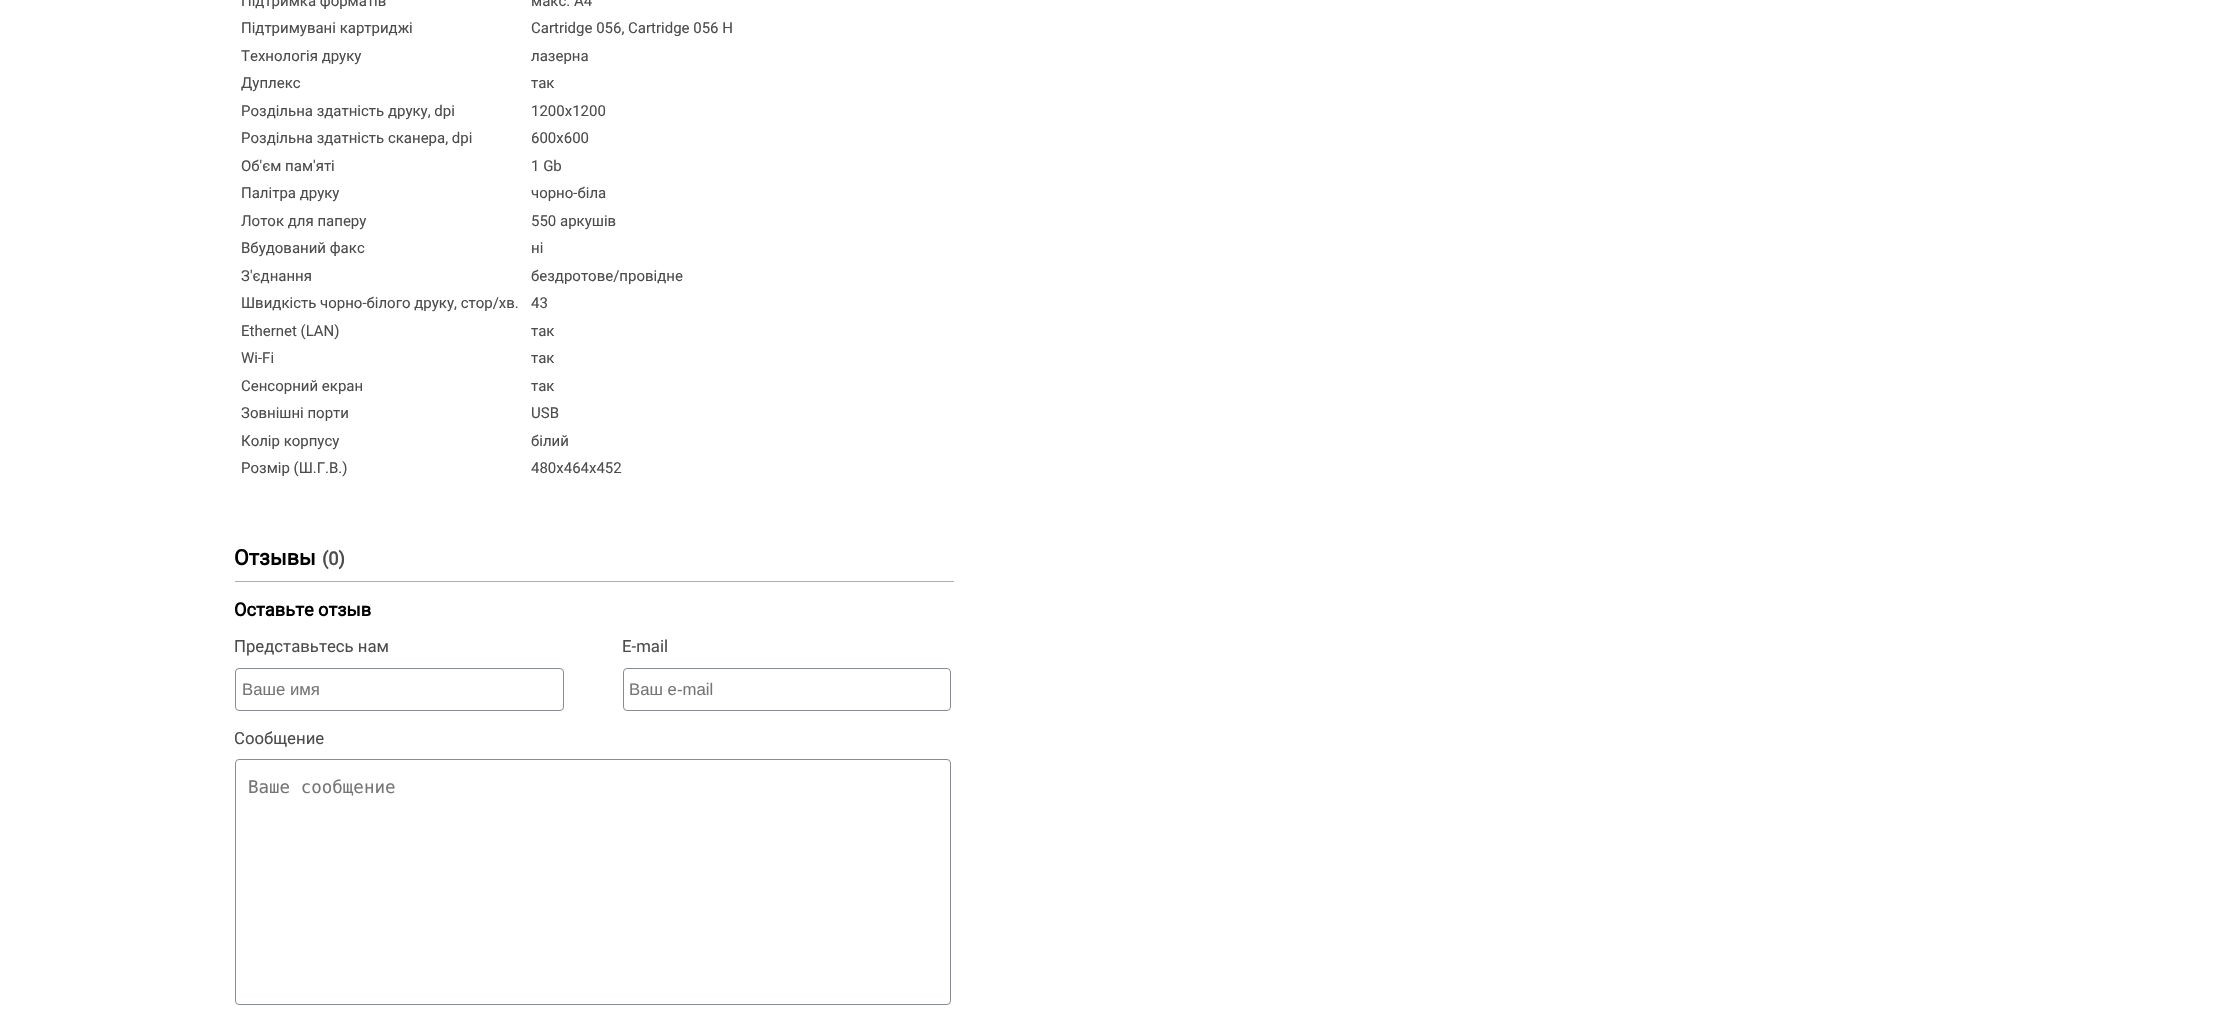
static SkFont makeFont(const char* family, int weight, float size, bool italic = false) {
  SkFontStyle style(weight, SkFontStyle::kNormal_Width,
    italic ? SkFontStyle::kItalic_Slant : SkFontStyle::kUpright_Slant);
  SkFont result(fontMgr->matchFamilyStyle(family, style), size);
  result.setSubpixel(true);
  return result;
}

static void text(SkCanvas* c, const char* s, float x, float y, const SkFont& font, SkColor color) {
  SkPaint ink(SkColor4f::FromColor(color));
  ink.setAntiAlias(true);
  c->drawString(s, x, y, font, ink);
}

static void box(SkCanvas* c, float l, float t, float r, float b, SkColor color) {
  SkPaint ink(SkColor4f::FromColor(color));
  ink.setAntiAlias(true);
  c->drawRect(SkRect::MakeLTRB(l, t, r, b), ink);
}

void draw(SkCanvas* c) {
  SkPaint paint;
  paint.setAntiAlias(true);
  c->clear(0xffffffff);
  SkFont face1 = makeFont("Roboto", 400, 15);
  text(c, "Підтримка форматів", 241, 6, face1, 0xff4c4c4c);
  text(c, "макс. А4", 531, 6, face1, 0xff4c4c4c);
  text(c, "Підтримувані картриджі", 241, 33, face1, 0xff4c4c4c);
  text(c, "Cartridge 056, Cartridge 056 H", 531, 33, face1, 0xff4c4c4c);
  text(c, "Технологія друку", 241, 61, face1, 0xff4c4c4c);
  text(c, "лазерна", 531, 61, face1, 0xff4c4c4c);
  text(c, "Дуплекс", 241, 88, face1, 0xff4c4c4c);
  text(c, "так", 531, 88, face1, 0xff4c4c4c);
  text(c, "Роздільна здатність друку, dpi", 241, 116, face1, 0xff4c4c4c);
  text(c, "1200х1200", 531, 116, face1, 0xff4c4c4c);
  text(c, "Роздільна здатність сканера, dpi", 241, 143, face1, 0xff4c4c4c);
  text(c, "600х600", 531, 143, face1, 0xff4c4c4c);
  text(c, "Об'єм пам'яті", 241, 171, face1, 0xff4c4c4c);
  text(c, "1 Gb", 531, 171, face1, 0xff4c4c4c);
  text(c, "Палітра друку", 241, 198, face1, 0xff4c4c4c);
  text(c, "чорно-біла", 531, 198, face1, 0xff4c4c4c);
  text(c, "Лоток для паперу", 241, 226, face1, 0xff4c4c4c);
  text(c, "550 аркушів", 531, 226, face1, 0xff4c4c4c);
  text(c, "Вбудований факс", 241, 253, face1, 0xff4c4c4c);
  text(c, "ні", 531, 253, face1, 0xff4c4c4c);
  text(c, "З'єднання", 241, 281, face1, 0xff4c4c4c);
  text(c, "бездротове/провідне", 531, 281, face1, 0xff4c4c4c);
  text(c, "Швидкість чорно-білого друку, стор/хв.", 241, 308, face1, 0xff4c4c4c);
  text(c, "43", 531, 308, face1, 0xff4c4c4c);
  text(c, "Ethernet (LAN)", 241, 336, face1, 0xff4c4c4c);
  text(c, "так", 531, 336, face1, 0xff4c4c4c);
  text(c, "Wi-Fi", 241, 363, face1, 0xff4c4c4c);
  text(c, "так", 531, 363, face1, 0xff4c4c4c);
  text(c, "Сенсорний екран", 241, 391, face1, 0xff4c4c4c);
  text(c, "так", 531, 391, face1, 0xff4c4c4c);
  text(c, "Зовнішні порти", 241, 418, face1, 0xff4c4c4c);
  text(c, "USB", 531, 418, face1, 0xff4c4c4c);
  text(c, "Колір корпусу", 241, 446, face1, 0xff4c4c4c);
  text(c, "білий", 531, 446, face1, 0xff4c4c4c);
  text(c, "Розмір (Ш.Г.В.)", 241, 473, face1, 0xff4c4c4c);
  text(c, "480х464х452", 531, 473, face1, 0xff4c4c4c);
  box(c, 235, 581, 954, 582, 0xffefaf00);
  SkFont face2 = makeFont("Roboto", 700, 21.5f);
  text(c, "Отзывы", 234, 565, face2, 0xff000000);
  SkFont face3 = makeFont("Roboto", 700, 18.25f);
  text(c, "(0)", 322, 565, face3, 0xff4c4c4c);
  text(c, "Оставьте отзыв", 234, 616, face3, 0xff000000);
  SkFont face4 = makeFont("Roboto", 400, 16.75f);
  text(c, "Представьтесь нам", 234, 652, face4, 0xff4c4c4c);
  paint.setStyle(SkPaint::kStroke_Style);
  paint.setStrokeWidth(1);
  paint.setColor(0xff878d92);
  c->drawRoundRect(SkRect::MakeLTRB(235.5f, 668.5f, 563.5f, 710.5f), 3.5f, 3.5f, paint);
  SkFont face5 = makeFont("Liberation Sans", 400, 16.75f);
  text(c, "Ваше имя", 242, 695, face5, 0xff757575);
  text(c, "E-mail", 622, 652, face4, 0xff4c4c4c);
  c->drawRoundRect(SkRect::MakeLTRB(623.5f, 668.5f, 950.5f, 710.5f), 3.5f, 3.5f, paint);
  text(c, "Ваш e-mail", 629, 695, face5, 0xff757575);
  text(c, "Сообщение", 234, 744, face4, 0xff4c4c4c);
  c->drawRoundRect(SkRect::MakeLTRB(235.5f, 759.5f, 950.5f, 1004.5f), 3.5f, 3.5f, paint);
  SkFont face6 = makeFont("DejaVu Sans Mono", 400, 17.5f);
  text(c, "Ваше сообщение", 248, 793, face6, 0xff757575);
}
